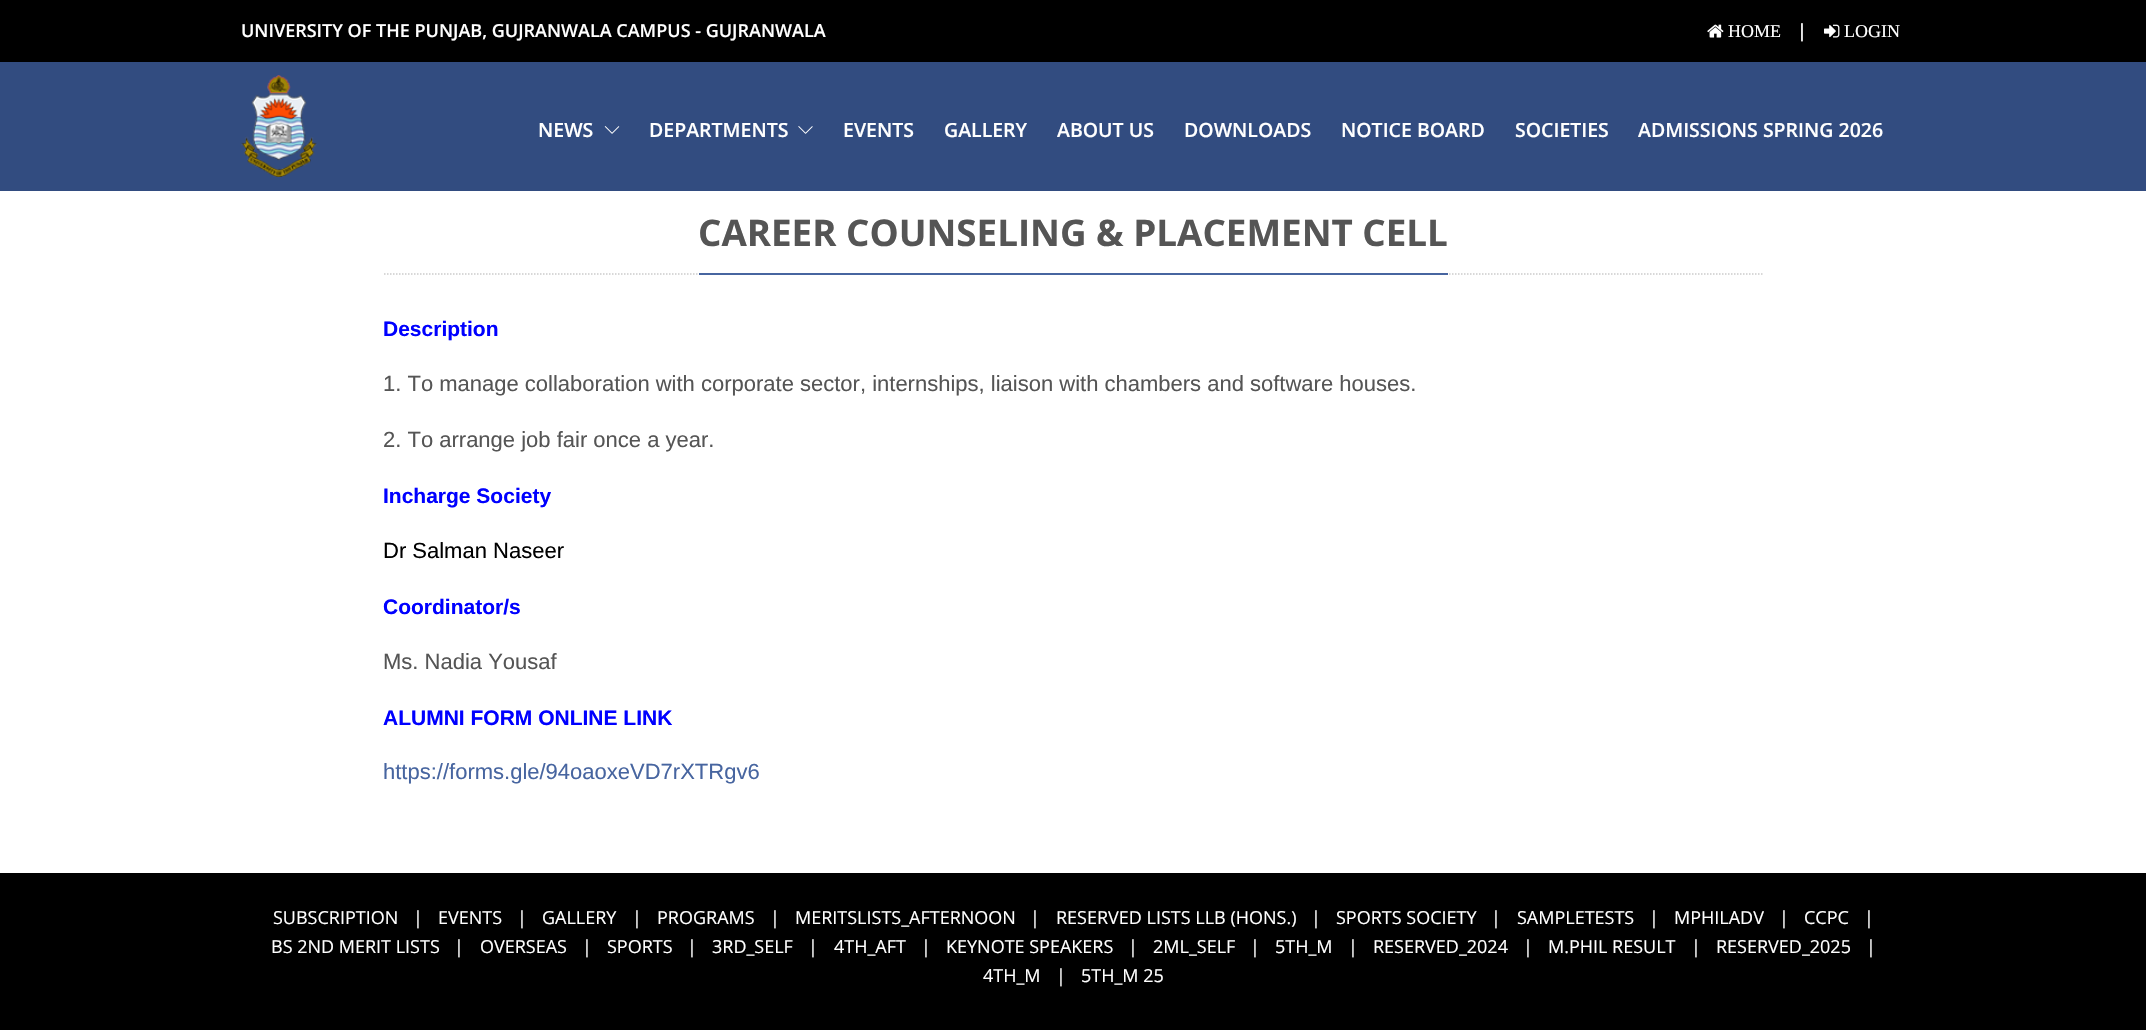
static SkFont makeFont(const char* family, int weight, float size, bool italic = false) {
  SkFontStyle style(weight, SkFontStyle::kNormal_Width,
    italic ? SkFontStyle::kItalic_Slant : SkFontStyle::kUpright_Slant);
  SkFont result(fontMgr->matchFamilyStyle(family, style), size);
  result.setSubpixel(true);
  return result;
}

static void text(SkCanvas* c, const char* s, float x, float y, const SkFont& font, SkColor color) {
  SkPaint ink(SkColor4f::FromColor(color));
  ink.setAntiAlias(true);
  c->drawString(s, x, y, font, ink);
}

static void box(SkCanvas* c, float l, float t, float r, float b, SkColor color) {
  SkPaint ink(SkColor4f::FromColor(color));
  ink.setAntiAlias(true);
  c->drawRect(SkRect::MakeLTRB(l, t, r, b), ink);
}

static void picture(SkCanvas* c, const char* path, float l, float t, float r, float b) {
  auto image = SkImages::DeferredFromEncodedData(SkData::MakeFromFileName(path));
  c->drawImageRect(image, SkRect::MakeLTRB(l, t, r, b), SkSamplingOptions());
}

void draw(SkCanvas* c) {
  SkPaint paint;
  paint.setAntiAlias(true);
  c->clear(0xffffffff);
  box(c, 0, 0, 2146, 62, 0xff000000);
  SkFont face1 = makeFont("Open Sans", 600, 18);
  text(c, "UNIVERSITY OF THE PUNJAB, GUJRANWALA CAMPUS - GUJRANWALA", 241, 37, face1, 0xffffffff);
  picture(c, "img_01.png", 1707, 24, 1724, 38);
  SkFont face2 = makeFont("Liberation Serif", 400, 18);
  text(c, "HOME", 1728, 37, face2, 0xffffffff);
  text(c, "|", 1797, 37, face1, 0xffffffff);
  picture(c, "img_02.png", 1824, 24, 1840, 38);
  text(c, "LOGIN", 1844, 37, face2, 0xffffffff);
  box(c, 0, 62, 2146, 191, 0xff324c80);
  picture(c, "img_03.png", 241, 75, 317, 177);
  SkFont face3 = makeFont("Open Sans", 600, 19.5f);
  text(c, "NEWS", 538, 137, face3, 0xffffffff);
  picture(c, "img_04.png", 604, 126, 620, 134);
  text(c, "DEPARTMENTS", 649, 137, face3, 0xffffffff);
  picture(c, "img_05.png", 798, 126, 813, 134);
  text(c, "EVENTS", 843, 137, face3, 0xffffffff);
  text(c, "GALLERY", 944, 137, face3, 0xffffffff);
  text(c, "ABOUT US", 1057, 137, face3, 0xffffffff);
  text(c, "DOWNLOADS", 1184, 137, face3, 0xffffffff);
  text(c, "NOTICE BOARD", 1341, 137, face3, 0xffffffff);
  text(c, "SOCIETIES", 1515, 137, face3, 0xffffffff);
  text(c, "ADMISSIONS SPRING 2026", 1638, 137, face3, 0xffffffff);
  paint.setStyle(SkPaint::kStroke_Style);
  paint.setStrokeWidth(1.5f);
  paint.setColor(0xffcccccc);
  paint.setPathEffect(SkDashPathEffect::Make({{1.5f, 1.5f}}, 0));
  c->drawPath(SkPathBuilder().moveTo(384, 274).lineTo(1764, 274).detach(), paint);
  paint.setPathEffect(nullptr);
  box(c, 699, 273, 1448, 275, 0xff4765a0);
  SkFont face4 = makeFont("Open Sans", 700, 36.75f);
  text(c, "CAREER COUNSELING & PLACEMENT CELL", 698, 246, face4, 0xff555555);
  SkFont face5 = makeFont("Liberation Sans", 700, 21);
  text(c, "Description", 383, 336, face5, 0xff0000ff);
  SkFont face6 = makeFont("Liberation Sans", 400, 22);
  text(c, "1. To manage collaboration with corporate sector, internships, liaison with chambers and software houses.", 383, 391, face6, 0xff555555);
  text(c, "2. To arrange job fair once a year.", 383, 447, face6, 0xff555555);
  text(c, "Incharge Society", 383, 503, face5, 0xff0000ff);
  text(c, "Dr Salman Naseer", 383, 558, face6, 0xff000000);
  text(c, "Coordinator/s", 383, 614, face5, 0xff0000ff);
  text(c, "Ms. Nadia Yousaf", 383, 669, face6, 0xff555555);
  text(c, "ALUMNI FORM ONLINE LINK", 383, 725, face5, 0xff0000ff);
  text(c, "https://forms.gle/94oaoxeVD7rXTRgv6", 383, 779, face6, 0xff4765a0);
  box(c, 0, 873, 2146, 1030, 0xff000000);
  SkFont face7 = makeFont("Open Sans", 400, 18);
  text(c, "SUBSCRIPTION", 273, 924, face7, 0xffffffff);
  text(c, "|", 413, 924, face7, 0xffffffff);
  text(c, "EVENTS", 438, 924, face7, 0xffffffff);
  text(c, "|", 517, 924, face7, 0xffffffff);
  text(c, "GALLERY", 542, 924, face7, 0xffffffff);
  text(c, "|", 632, 924, face7, 0xffffffff);
  text(c, "PROGRAMS", 657, 924, face7, 0xffffffff);
  text(c, "|", 770, 924, face7, 0xffffffff);
  text(c, "MERITSLISTS_AFTERNOON", 795, 924, face7, 0xffffffff);
  text(c, "|", 1030, 924, face7, 0xffffffff);
  text(c, "RESERVED LISTS LLB (HONS.)", 1056, 924, face7, 0xffffffff);
  text(c, "|", 1311, 924, face7, 0xffffffff);
  text(c, "SPORTS SOCIETY", 1336, 924, face7, 0xffffffff);
  text(c, "|", 1491, 924, face7, 0xffffffff);
  text(c, "SAMPLETESTS", 1517, 924, face7, 0xffffffff);
  text(c, "|", 1649, 924, face7, 0xffffffff);
  text(c, "MPHILADV", 1674, 924, face7, 0xffffffff);
  text(c, "|", 1779, 924, face7, 0xffffffff);
  text(c, "CCPC", 1804, 924, face7, 0xffffffff);
  text(c, "|", 1864, 924, face7, 0xffffffff);
  text(c, "BS 2ND MERIT LISTS", 271, 953, face7, 0xffffffff);
  text(c, "|", 454, 953, face7, 0xffffffff);
  text(c, "OVERSEAS", 480, 953, face7, 0xffffffff);
  text(c, "|", 582, 953, face7, 0xffffffff);
  text(c, "SPORTS", 607, 953, face7, 0xffffffff);
  text(c, "|", 687, 953, face7, 0xffffffff);
  text(c, "3RD_SELF", 712, 953, face7, 0xffffffff);
  text(c, "|", 808, 953, face7, 0xffffffff);
  text(c, "4TH_AFT", 834, 953, face7, 0xffffffff);
  text(c, "|", 921, 953, face7, 0xffffffff);
  text(c, "KEYNOTE SPEAKERS", 946, 953, face7, 0xffffffff);
  text(c, "|", 1128, 953, face7, 0xffffffff);
  text(c, "2ML_SELF", 1153, 953, face7, 0xffffffff);
  text(c, "|", 1250, 953, face7, 0xffffffff);
  text(c, "5TH_M", 1275, 953, face7, 0xffffffff);
  text(c, "|", 1348, 953, face7, 0xffffffff);
  text(c, "RESERVED_2024", 1373, 953, face7, 0xffffffff);
  text(c, "|", 1523, 953, face7, 0xffffffff);
  text(c, "M.PHIL RESULT", 1548, 953, face7, 0xffffffff);
  text(c, "|", 1691, 953, face7, 0xffffffff);
  text(c, "RESERVED_2025", 1716, 953, face7, 0xffffffff);
  text(c, "|", 1866, 953, face7, 0xffffffff);
  text(c, "4TH_M", 983, 982, face7, 0xffffffff);
  text(c, "|", 1056, 982, face7, 0xffffffff);
  text(c, "5TH_M 25", 1081, 982, face7, 0xffffffff);
}
